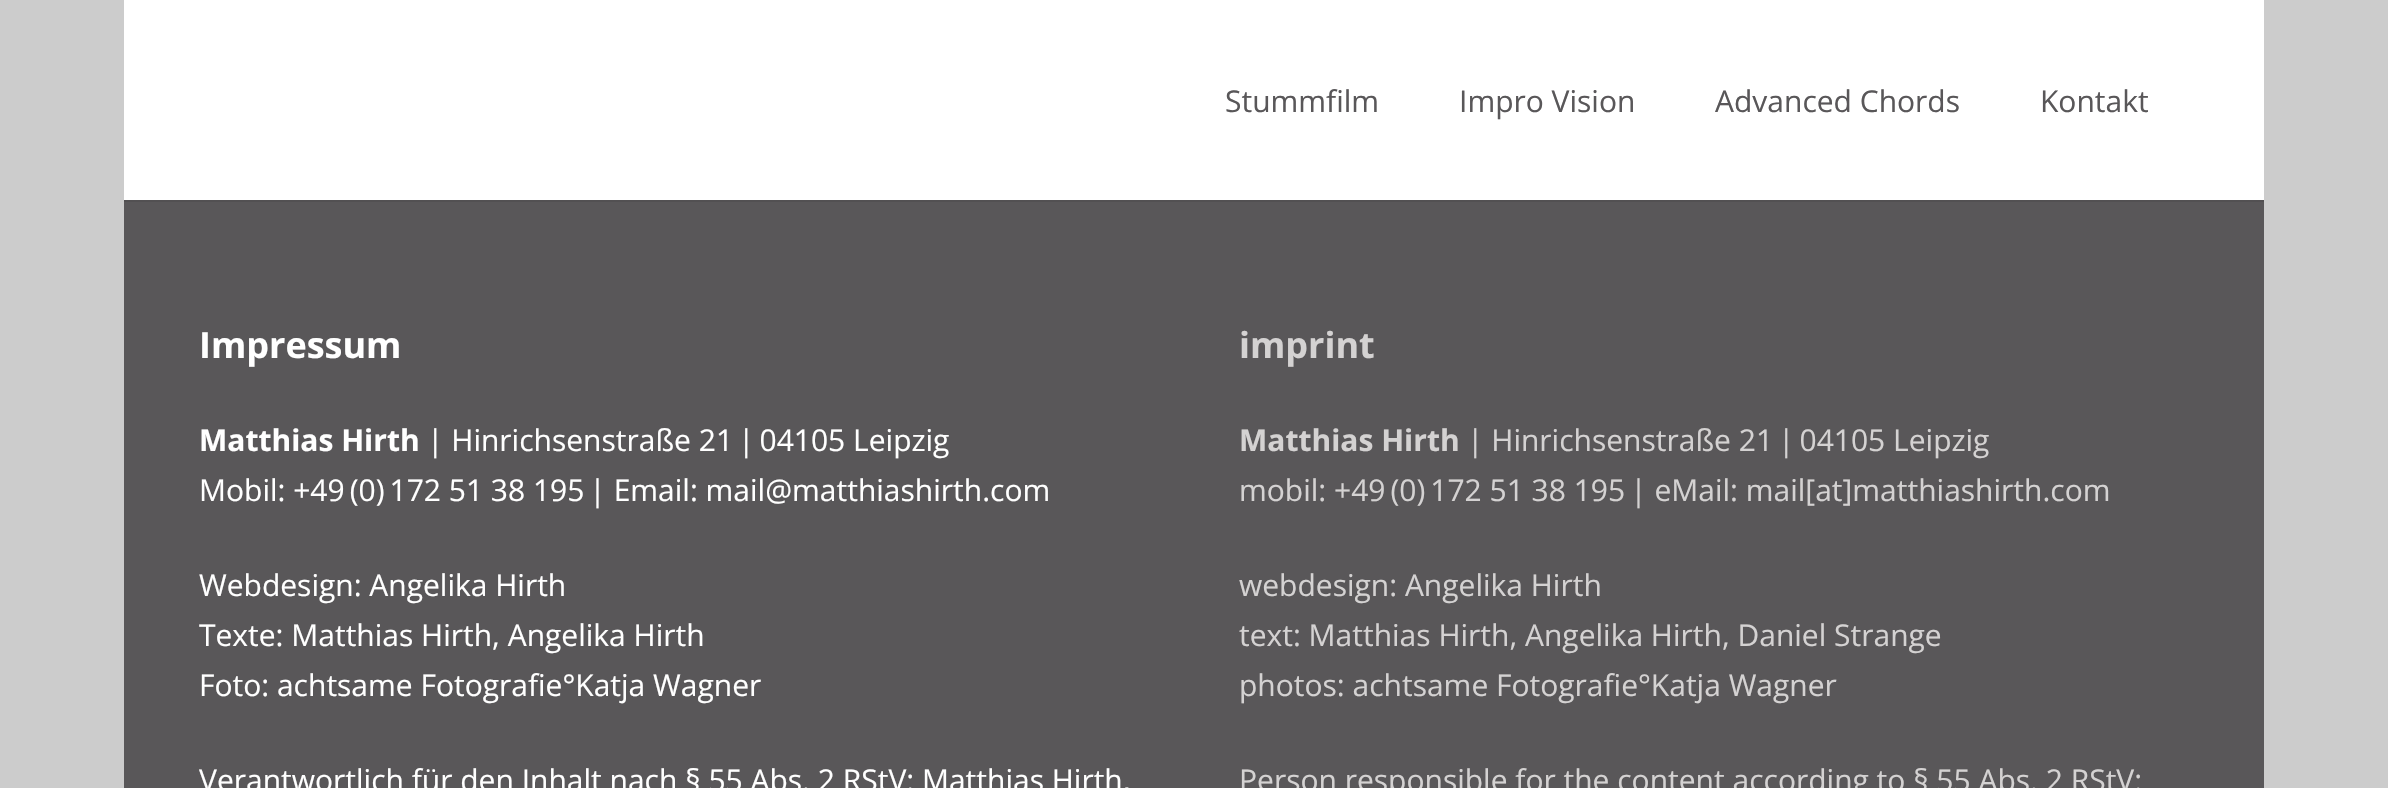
static SkFont makeFont(const char* family, int weight, float size, bool italic = false) {
  SkFontStyle style(weight, SkFontStyle::kNormal_Width,
    italic ? SkFontStyle::kItalic_Slant : SkFontStyle::kUpright_Slant);
  SkFont result(fontMgr->matchFamilyStyle(family, style), size);
  result.setSubpixel(true);
  return result;
}

static void text(SkCanvas* c, const char* s, float x, float y, const SkFont& font, SkColor color) {
  SkPaint ink(SkColor4f::FromColor(color));
  ink.setAntiAlias(true);
  c->drawString(s, x, y, font, ink);
}

static void box(SkCanvas* c, float l, float t, float r, float b, SkColor color) {
  SkPaint ink(SkColor4f::FromColor(color));
  ink.setAntiAlias(true);
  c->drawRect(SkRect::MakeLTRB(l, t, r, b), ink);
}

void draw(SkCanvas* c) {
  SkPaint paint;
  paint.setAntiAlias(true);
  c->clear(0xffcccccc);
  box(c, 124, 202, 2264, 788, 0xff595759);
  box(c, 124, 200, 2264, 202, 0xff525052);
  box(c, 124, 0, 2264, 200, 0xffffffff);
  SkFont face1 = makeFont("Open Sans", 400, 30);
  text(c, "Stummfilm", 1225, 112, face1, 0xff595759);
  text(c, "Impro Vision", 1459, 112, face1, 0xff595759);
  text(c, "Advanced Chords", 1715, 112, face1, 0xff595759);
  text(c, "Kontakt", 2040, 112, face1, 0xff595759);
  SkFont face2 = makeFont("Open Sans", 700, 36);
  text(c, "Impressum", 199, 358, face2, 0xffffffff);
  SkFont face3 = makeFont("Open Sans", 700, 30);
  text(c, "Matthias Hirth", 199, 451, face3, 0xffffffff);
  text(c, "| Hinrichsenstraße 21 | 04105 Leipzig", 427, 451, face1, 0xffffffff);
  text(c, "Mobil: +49 (0) 172 51 38 195 | Email: mail@matthiashirth.com", 199, 501, face1, 0xffffffff);
  text(c, "Webdesign: Angelika Hirth", 199, 596, face1, 0xffffffff);
  text(c, "Texte: Matthias Hirth, Angelika Hirth", 199, 646, face1, 0xffffffff);
  text(c, "Foto: achtsame Fotografie°Katja Wagner", 199, 696, face1, 0xffffffff);
  text(c, "Verantwortlich für den Inhalt nach § 55 Abs. 2 RStV: Matthias Hirth,", 199, 791, face1, 0xffffffff);
  text(c, "imprint", 1239, 358, face2, 0xffd4d2d2);
  text(c, "Matthias Hirth", 1239, 451, face3, 0xffd4d2d2);
  text(c, "| Hinrichsenstraße 21 | 04105 Leipzig", 1467, 451, face1, 0xffd4d2d2);
  text(c, "mobil: +49 (0) 172 51 38 195 | eMail: mail[at]matthiashirth.com", 1239, 501, face1, 0xffd4d2d2);
  text(c, "webdesign: Angelika Hirth", 1239, 596, face1, 0xffd4d2d2);
  text(c, "text: Matthias Hirth, Angelika Hirth, Daniel Strange", 1239, 646, face1, 0xffd4d2d2);
  text(c, "photos: achtsame Fotografie°Katja Wagner", 1239, 696, face1, 0xffd4d2d2);
  text(c, "Person responsible for the content according to § 55 Abs. 2 RStV:", 1239, 791, face1, 0xffd4d2d2);
}
